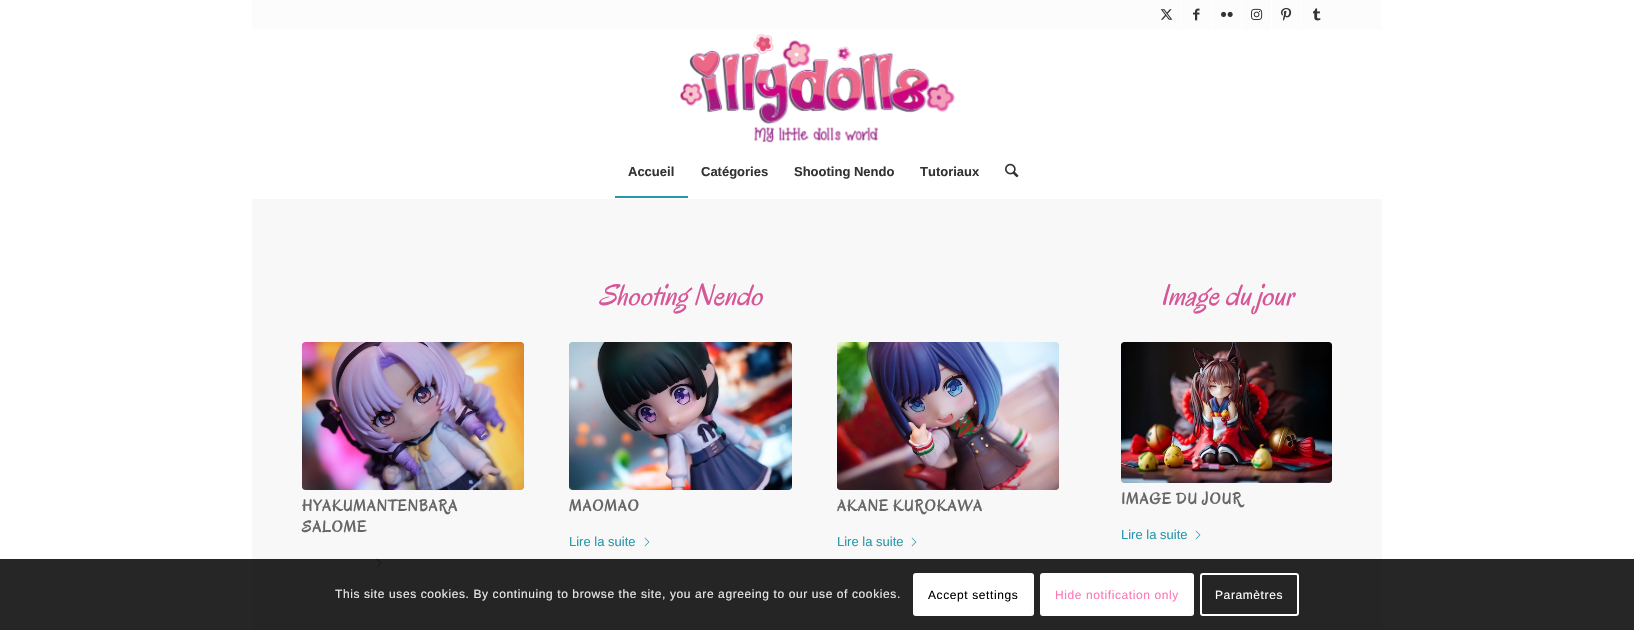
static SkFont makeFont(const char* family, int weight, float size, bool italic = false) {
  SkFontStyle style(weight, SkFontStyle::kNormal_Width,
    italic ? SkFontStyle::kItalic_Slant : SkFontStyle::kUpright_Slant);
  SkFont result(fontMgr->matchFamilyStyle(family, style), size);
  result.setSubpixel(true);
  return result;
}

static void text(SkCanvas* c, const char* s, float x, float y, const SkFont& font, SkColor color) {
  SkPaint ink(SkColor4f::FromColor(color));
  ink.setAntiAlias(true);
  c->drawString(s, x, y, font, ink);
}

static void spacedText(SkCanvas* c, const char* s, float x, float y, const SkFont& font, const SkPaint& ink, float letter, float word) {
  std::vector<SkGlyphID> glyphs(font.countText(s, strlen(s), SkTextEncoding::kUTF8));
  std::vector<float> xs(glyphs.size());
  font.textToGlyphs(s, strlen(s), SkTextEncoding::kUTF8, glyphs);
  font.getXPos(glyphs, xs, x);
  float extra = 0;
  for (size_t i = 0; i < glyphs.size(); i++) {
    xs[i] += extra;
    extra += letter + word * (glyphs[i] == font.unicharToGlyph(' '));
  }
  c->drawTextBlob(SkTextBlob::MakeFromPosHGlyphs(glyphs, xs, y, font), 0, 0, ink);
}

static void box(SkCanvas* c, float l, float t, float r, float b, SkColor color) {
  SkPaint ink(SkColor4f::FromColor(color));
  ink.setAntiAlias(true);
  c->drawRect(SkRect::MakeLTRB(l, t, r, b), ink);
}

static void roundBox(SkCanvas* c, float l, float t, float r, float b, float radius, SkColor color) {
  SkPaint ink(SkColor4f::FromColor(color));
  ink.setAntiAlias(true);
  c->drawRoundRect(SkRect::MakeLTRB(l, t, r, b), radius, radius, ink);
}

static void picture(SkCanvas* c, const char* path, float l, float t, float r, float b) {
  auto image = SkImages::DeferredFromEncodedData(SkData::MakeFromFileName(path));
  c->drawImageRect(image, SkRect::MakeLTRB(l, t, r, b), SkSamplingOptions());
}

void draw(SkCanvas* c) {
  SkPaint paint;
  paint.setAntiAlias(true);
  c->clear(0xffffffff);
  box(c, 252, 0, 1382, 30, 0xfffcfcfc);
  box(c, 1181, 0, 1182, 30, 0xffffffff);
  picture(c, "img_01.png", 1160, 9, 1173, 20);
  box(c, 1211, 0, 1212, 30, 0xffffffff);
  picture(c, "img_02.png", 1193, 8, 1200, 21);
  box(c, 1241, 0, 1242, 30, 0xffffffff);
  picture(c, "img_03.png", 1221, 11, 1233, 17);
  box(c, 1271, 0, 1272, 30, 0xffffffff);
  picture(c, "img_04.png", 1251, 8, 1263, 20);
  box(c, 1301, 0, 1302, 30, 0xffffffff);
  picture(c, "img_05.png", 1281, 7, 1292, 21);
  picture(c, "img_06.png", 1313, 8, 1321, 21);
  picture(c, "img_07.png", 679, 33, 955, 143);
  SkFont face1 = makeFont("Liberation Sans", 700, 13);
  text(c, "Accueil", 628, 176, face1, 0xff333333);
  box(c, 615, 196, 688, 198, 0xff2997ab);
  text(c, "Catégories", 701, 176, face1, 0xff333333);
  text(c, "Shooting Nendo", 794, 176, face1, 0xff333333);
  text(c, "Tutoriaux", 920, 176, face1, 0xff333333);
  picture(c, "img_08.png", 1005, 163, 1019, 178);
  box(c, 252, 199, 1382, 630, 0xfff8f8f8);
  SkFont face2 = makeFont("Oregano", 400, 30, true);
  text(c, "Shooting Nendo", 599, 305, face2, 0xffd65799);
  roundBox(c, 302, 342, 524, 490, 3, 0xffffffff);
  picture(c, "img_09.png", 302, 342, 524, 490);
  SkFont face3 = makeFont("Oregano", 700, 16);
  paint.setColor(0xff666666);
  spacedText(c, "HYAKUMANTENBARA", 302, 511, face3, paint, 1, 0);
  spacedText(c, "SALOME", 302, 532, face3, paint, 1, 0);
  picture(c, "img_10.png", 376, 558, 382, 568);
  roundBox(c, 569, 342, 792, 490, 3, 0xffffffff);
  picture(c, "img_11.png", 569, 342, 792, 490);
  spacedText(c, "MAOMAO", 569, 511, face3, paint, 1, 0);
  SkFont face4 = makeFont("Liberation Sans", 400, 13);
  text(c, "Lire la suite", 569, 546, face4, 0xff2997ab);
  picture(c, "img_10.png", 644, 537, 650, 547);
  roundBox(c, 837, 342, 1059, 490, 3, 0xffffffff);
  picture(c, "img_12.png", 837, 342, 1059, 490);
  spacedText(c, "AKANE KUROKAWA", 837, 511, face3, paint, 1, 0);
  text(c, "Lire la suite", 837, 546, face4, 0xff2997ab);
  picture(c, "img_10.png", 911, 537, 917, 547);
  text(c, "Image du jour", 1160, 305, face2, 0xffd65799);
  roundBox(c, 1121, 342, 1332, 483, 3, 0xffffffff);
  picture(c, "img_13.png", 1121, 342, 1332, 483);
  spacedText(c, "IMAGE DU JOUR", 1121, 504, face3, paint, 1, 0);
  text(c, "Lire la suite", 1121, 539, face4, 0xff2997ab);
  picture(c, "img_10.png", 1195, 530, 1201, 540);
  box(c, 0, 559, 1634, 630, 0xd9000000);
  SkFont face5 = makeFont("Liberation Sans", 400, 12);
  paint.setColor(0xffe9e9e9);
  spacedText(c, "This site uses cookies. By continuing to browse the site, you are agreeing to our use of cookies.", 335, 598, face5, paint, 0.6f, 0);
  roundBox(c, 913, 573, 1034, 616, 3, 0xffffffff);
  paint.setColor(0xff000000);
  spacedText(c, "Accept settings", 928, 599, face5, paint, 0.6f, 0);
  paint.setColor(0xffffffff);
  c->drawRoundRect(SkRect::MakeLTRB(1041, 574, 1193, 615), 2, 2, paint);
  paint.setStyle(SkPaint::kStroke_Style);
  paint.setStrokeWidth(2);
  c->drawRoundRect(SkRect::MakeLTRB(1041, 574, 1193, 615), 2, 2, paint);
  paint.setStyle(SkPaint::kFill_Style);
  paint.setColor(0xffff75b5);
  spacedText(c, "Hide notification only", 1055, 599, face5, paint, 0.6f, 0);
  paint.setStyle(SkPaint::kStroke_Style);
  paint.setColor(0xffffffff);
  c->drawRoundRect(SkRect::MakeLTRB(1201, 574, 1298, 615), 2, 2, paint);
  paint.setStyle(SkPaint::kFill_Style);
  spacedText(c, "Paramètres", 1215, 599, face5, paint, 0.6f, 0);
}
